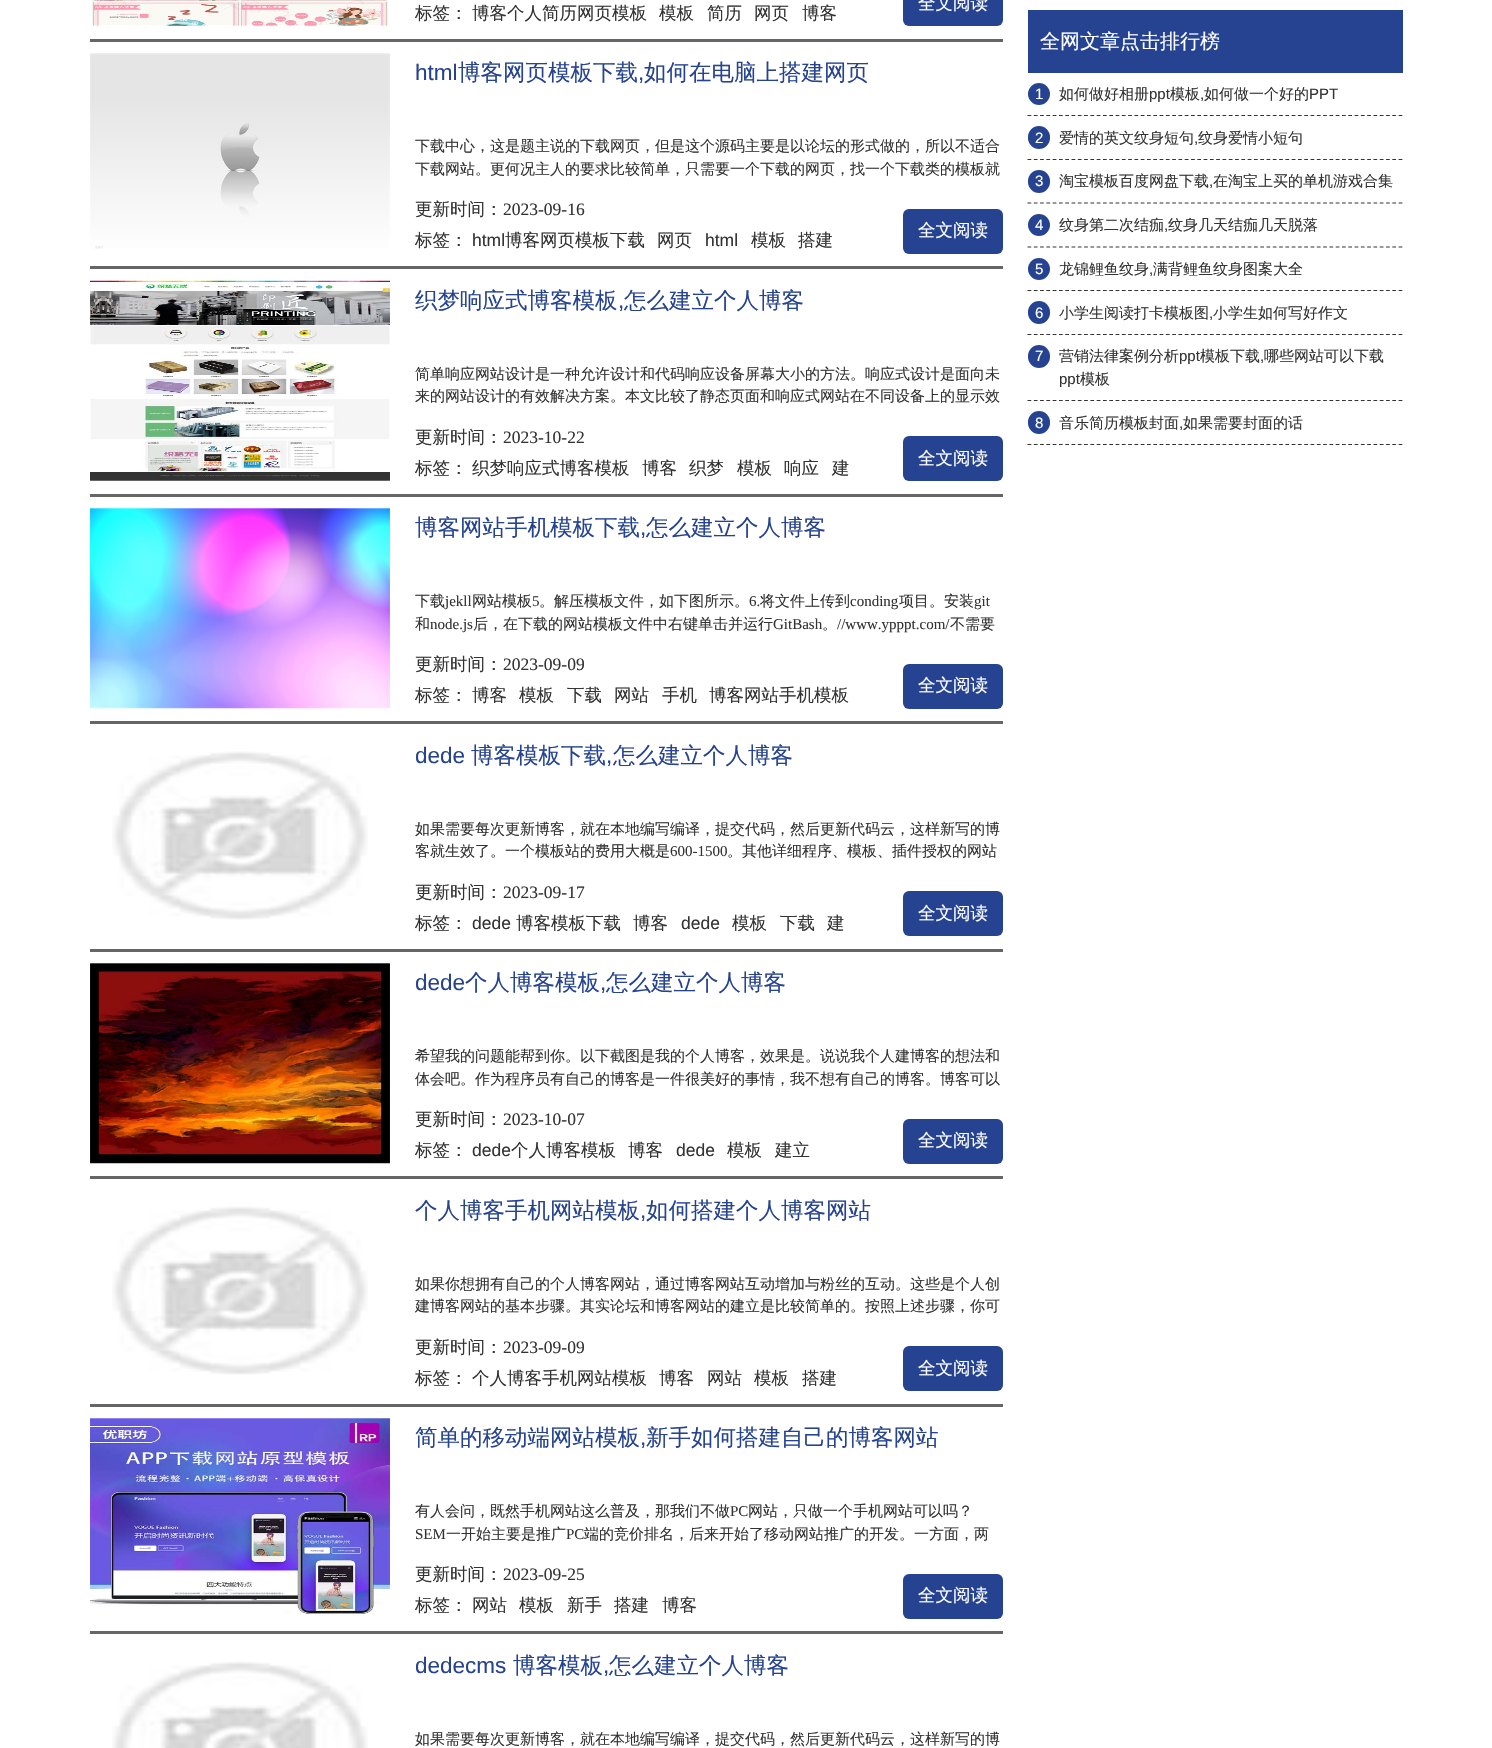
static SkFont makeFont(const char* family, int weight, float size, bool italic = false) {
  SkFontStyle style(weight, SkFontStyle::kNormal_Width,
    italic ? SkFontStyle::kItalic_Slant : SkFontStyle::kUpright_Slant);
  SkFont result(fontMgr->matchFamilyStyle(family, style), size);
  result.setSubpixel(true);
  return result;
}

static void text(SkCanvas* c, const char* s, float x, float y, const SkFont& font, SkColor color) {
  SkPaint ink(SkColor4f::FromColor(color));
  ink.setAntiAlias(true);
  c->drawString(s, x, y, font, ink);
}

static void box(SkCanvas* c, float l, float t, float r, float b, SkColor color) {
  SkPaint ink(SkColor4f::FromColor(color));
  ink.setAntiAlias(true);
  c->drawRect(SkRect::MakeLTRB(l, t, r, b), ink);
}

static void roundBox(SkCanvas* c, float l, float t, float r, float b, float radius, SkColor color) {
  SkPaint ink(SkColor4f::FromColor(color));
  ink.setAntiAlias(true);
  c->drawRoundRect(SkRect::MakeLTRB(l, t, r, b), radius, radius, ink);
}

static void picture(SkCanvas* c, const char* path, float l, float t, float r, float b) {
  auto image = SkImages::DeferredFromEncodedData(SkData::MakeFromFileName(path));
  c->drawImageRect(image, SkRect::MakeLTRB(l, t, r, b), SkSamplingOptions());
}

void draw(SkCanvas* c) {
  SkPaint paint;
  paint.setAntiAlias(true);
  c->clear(0xffffffff);
  box(c, 90, 39, 1003, 42, 0xff666666);
  picture(c, "img_01.png", 90, 0, 389, 26);
  SkFont face1 = makeFont("WenQuanYi Zen Hei", 500, 17.5f);
  text(c, "标签：", 415, 19, face1, 0xff333333);
  text(c, "博客个人简历网页模板", 472, 19, face1, 0xff333333);
  text(c, "模板", 659, 19, face1, 0xff333333);
  text(c, "简历", 707, 19, face1, 0xff333333);
  text(c, "网页", 754, 19, face1, 0xff333333);
  text(c, "博客", 802, 19, face1, 0xff333333);
  roundBox(c, 903, -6, 1003, 26, 6, 0xff254390);
  text(c, "全文阅读", 918, 9, face1, 0xffffffff);
  box(c, 90, 266, 1003, 269, 0xff666666);
  picture(c, "img_02.png", 90, 53, 390, 249);
  SkFont face2 = makeFont("Liberation Sans", 400, 22.5f);
  text(c, "html", 415, 80, face2, 0xff254390);
  SkFont face3 = makeFont("WenQuanYi Zen Hei", 500, 22.5f);
  text(c, "博客网页模板下载", 458, 80, face3, 0xff254390);
  text(c, ",", 638, 80, face2, 0xff254390);
  text(c, "如何在电脑上搭建网页", 644, 80, face3, 0xff254390);
  SkFont face4 = makeFont("WenQuanYi Zen Hei", 500, 15);
  text(c, "下载中心，这是题主说的下载网页，但是这个源码主要是以论坛的形式做的，所以不适合", 415, 151, face4, 0xff333333);
  text(c, "下载网站。更何况主人的要求比较简单，只需要一个下载的网页，找一个下载类的模板就", 415, 174, face4, 0xff333333);
  text(c, "更新时间：", 415, 215, face1, 0xff333333);
  SkFont face5 = makeFont("Liberation Serif", 400, 17.5f);
  text(c, "2023-09-16", 503, 215, face5, 0xff333333);
  text(c, "标签：", 415, 246, face1, 0xff333333);
  SkFont face6 = makeFont("Liberation Sans", 400, 17.5f);
  text(c, "html", 472, 246, face6, 0xff333333);
  text(c, "博客网页模板下载", 505, 246, face1, 0xff333333);
  text(c, "网页", 657, 246, face1, 0xff333333);
  text(c, "html", 705, 246, face6, 0xff333333);
  text(c, "模板", 751, 246, face1, 0xff333333);
  text(c, "搭建", 798, 246, face1, 0xff333333);
  roundBox(c, 903, 209, 1003, 254, 6, 0xff254390);
  text(c, "全文阅读", 918, 236, face1, 0xffffffff);
  box(c, 90, 494, 1003, 497, 0xff666666);
  picture(c, "img_03.png", 90, 280, 390, 481);
  text(c, "织梦响应式博客模板", 415, 308, face3, 0xff254390);
  text(c, ",", 618, 308, face2, 0xff254390);
  text(c, "怎么建立个人博客", 624, 308, face3, 0xff254390);
  text(c, "简单响应网站设计是一种允许设计和代码响应设备屏幕大小的方法。响应式设计是面向未", 415, 379, face4, 0xff333333);
  text(c, "来的网站设计的有效解决方案。本文比较了静态页面和响应式网站在不同设备上的显示效", 415, 401, face4, 0xff333333);
  text(c, "更新时间：", 415, 443, face1, 0xff333333);
  text(c, "2023-10-22", 503, 443, face5, 0xff333333);
  text(c, "标签：", 415, 474, face1, 0xff333333);
  text(c, "织梦响应式博客模板", 472, 474, face1, 0xff333333);
  text(c, "博客", 642, 474, face1, 0xff333333);
  text(c, "织梦", 689, 474, face1, 0xff333333);
  text(c, "模板", 737, 474, face1, 0xff333333);
  text(c, "响应", 784, 474, face1, 0xff333333);
  text(c, "建", 832, 474, face1, 0xff333333);
  roundBox(c, 903, 436, 1003, 481, 6, 0xff254390);
  text(c, "全文阅读", 918, 464, face1, 0xffffffff);
  box(c, 90, 721, 1003, 724, 0xff666666);
  picture(c, "img_04.png", 90, 508, 390, 709);
  text(c, "博客网站手机模板下载", 415, 535, face3, 0xff254390);
  text(c, ",", 640, 535, face2, 0xff254390);
  text(c, "怎么建立个人博客", 646, 535, face3, 0xff254390);
  text(c, "下载", 415, 606, face4, 0xff333333);
  SkFont face7 = makeFont("Liberation Serif", 400, 15);
  text(c, "jekll", 445, 606, face7, 0xff333333);
  text(c, "网站模板", 472, 606, face4, 0xff333333);
  text(c, "5", 532, 606, face7, 0xff333333);
  text(c, "。解压模板文件，如下图所示。", 539, 606, face4, 0xff333333);
  text(c, "6.", 749, 606, face7, 0xff333333);
  text(c, "将文件上传到", 760, 606, face4, 0xff333333);
  text(c, "conding", 850, 606, face7, 0xff333333);
  text(c, "项目。安装", 899, 606, face4, 0xff333333);
  text(c, "git", 974, 606, face7, 0xff333333);
  text(c, "和", 415, 629, face4, 0xff333333);
  text(c, "node.js", 430, 629, face7, 0xff333333);
  text(c, "后，在下载的网站模板文件中右键单击并运行", 473, 629, face4, 0xff333333);
  text(c, "GitBash", 773, 629, face7, 0xff333333);
  text(c, "。", 822, 629, face4, 0xff333333);
  text(c, "//www.ypppt.com/", 837, 629, face7, 0xff333333);
  text(c, "不需要", 950, 629, face4, 0xff333333);
  text(c, "更新时间：", 415, 670, face1, 0xff333333);
  text(c, "2023-09-09", 503, 670, face5, 0xff333333);
  text(c, "标签：", 415, 701, face1, 0xff333333);
  text(c, "博客", 472, 701, face1, 0xff333333);
  text(c, "模板", 519, 701, face1, 0xff333333);
  text(c, "下载", 567, 701, face1, 0xff333333);
  text(c, "网站", 614, 701, face1, 0xff333333);
  text(c, "手机", 662, 701, face1, 0xff333333);
  text(c, "博客网站手机模板", 709, 701, face1, 0xff333333);
  roundBox(c, 903, 664, 1003, 709, 6, 0xff254390);
  text(c, "全文阅读", 918, 691, face1, 0xffffffff);
  box(c, 90, 949, 1003, 952, 0xff666666);
  picture(c, "img_05.png", 112, 751, 368, 920);
  text(c, "dede", 415, 763, face2, 0xff254390);
  text(c, "博客模板下载", 471, 763, face3, 0xff254390);
  text(c, ",", 606, 763, face2, 0xff254390);
  text(c, "怎么建立个人博客", 613, 763, face3, 0xff254390);
  text(c, "如果需要每次更新博客，就在本地编写编译，提交代码，然后更新代码云，这样新写的博", 415, 834, face4, 0xff333333);
  text(c, "客就生效了。一个模板站的费用大概是", 415, 856, face4, 0xff333333);
  text(c, "600-1500", 670, 856, face7, 0xff333333);
  text(c, "。其他详细程序、模板、插件授权的网站", 727, 856, face4, 0xff333333);
  text(c, "更新时间：", 415, 898, face1, 0xff333333);
  text(c, "2023-09-17", 503, 898, face5, 0xff333333);
  text(c, "标签：", 415, 929, face1, 0xff333333);
  text(c, "dede", 472, 929, face6, 0xff333333);
  text(c, "博客模板下载", 516, 929, face1, 0xff333333);
  text(c, "博客", 633, 929, face1, 0xff333333);
  text(c, "dede", 681, 929, face6, 0xff333333);
  text(c, "模板", 732, 929, face1, 0xff333333);
  text(c, "下载", 780, 929, face1, 0xff333333);
  text(c, "建", 827, 929, face1, 0xff333333);
  roundBox(c, 903, 891, 1003, 936, 6, 0xff254390);
  text(c, "全文阅读", 918, 919, face1, 0xffffffff);
  box(c, 90, 1176, 1003, 1179, 0xff666666);
  picture(c, "img_06.png", 90, 963, 390, 1164);
  text(c, "dede", 415, 990, face2, 0xff254390);
  text(c, "个人博客模板", 465, 990, face3, 0xff254390);
  text(c, ",", 600, 990, face2, 0xff254390);
  text(c, "怎么建立个人博客", 606, 990, face3, 0xff254390);
  text(c, "希望我的问题能帮到你。以下截图是我的个人博客，效果是。说说我个人建博客的想法和", 415, 1061, face4, 0xff333333);
  text(c, "体会吧。作为程序员有自己的博客是一件很美好的事情，我不想有自己的博客。博客可以", 415, 1084, face4, 0xff333333);
  text(c, "更新时间：", 415, 1125, face1, 0xff333333);
  text(c, "2023-10-07", 503, 1125, face5, 0xff333333);
  text(c, "标签：", 415, 1156, face1, 0xff333333);
  text(c, "dede", 472, 1156, face6, 0xff333333);
  text(c, "个人博客模板", 511, 1156, face1, 0xff333333);
  text(c, "博客", 628, 1156, face1, 0xff333333);
  text(c, "dede", 676, 1156, face6, 0xff333333);
  text(c, "模板", 727, 1156, face1, 0xff333333);
  text(c, "建立", 775, 1156, face1, 0xff333333);
  roundBox(c, 903, 1119, 1003, 1164, 6, 0xff254390);
  text(c, "全文阅读", 918, 1146, face1, 0xffffffff);
  box(c, 90, 1404, 1003, 1407, 0xff666666);
  picture(c, "img_05.png", 112, 1206, 368, 1375);
  text(c, "个人博客手机网站模板", 415, 1218, face3, 0xff254390);
  text(c, ",", 640, 1218, face2, 0xff254390);
  text(c, "如何搭建个人博客网站", 646, 1218, face3, 0xff254390);
  text(c, "如果你想拥有自己的个人博客网站，通过博客网站互动增加与粉丝的互动。这些是个人创", 415, 1289, face4, 0xff333333);
  text(c, "建博客网站的基本步骤。其实论坛和博客网站的建立是比较简单的。按照上述步骤，你可", 415, 1311, face4, 0xff333333);
  text(c, "更新时间：", 415, 1353, face1, 0xff333333);
  text(c, "2023-09-09", 503, 1353, face5, 0xff333333);
  text(c, "标签：", 415, 1384, face1, 0xff333333);
  text(c, "个人博客手机网站模板", 472, 1384, face1, 0xff333333);
  text(c, "博客", 659, 1384, face1, 0xff333333);
  text(c, "网站", 707, 1384, face1, 0xff333333);
  text(c, "模板", 754, 1384, face1, 0xff333333);
  text(c, "搭建", 802, 1384, face1, 0xff333333);
  roundBox(c, 903, 1346, 1003, 1391, 6, 0xff254390);
  text(c, "全文阅读", 918, 1374, face1, 0xffffffff);
  box(c, 90, 1631, 1003, 1634, 0xff666666);
  picture(c, "img_07.png", 90, 1418, 390, 1614);
  text(c, "简单的移动端网站模板", 415, 1445, face3, 0xff254390);
  text(c, ",", 640, 1445, face2, 0xff254390);
  text(c, "新手如何搭建自己的博客网站", 646, 1445, face3, 0xff254390);
  text(c, "有人会问，既然手机网站这么普及，那我们不做", 415, 1516, face4, 0xff333333);
  text(c, "PC", 730, 1516, face7, 0xff333333);
  text(c, "网站，只做一个手机网站可以吗？", 748, 1516, face4, 0xff333333);
  text(c, "SEM", 415, 1539, face7, 0xff333333);
  text(c, "一开始主要是推广", 446, 1539, face4, 0xff333333);
  text(c, "PC", 566, 1539, face7, 0xff333333);
  text(c, "端的竞价排名，后来开始了移动网站推广的开发。一方面，两", 584, 1539, face4, 0xff333333);
  text(c, "更新时间：", 415, 1580, face1, 0xff333333);
  text(c, "2023-09-25", 503, 1580, face5, 0xff333333);
  text(c, "标签：", 415, 1611, face1, 0xff333333);
  text(c, "网站", 472, 1611, face1, 0xff333333);
  text(c, "模板", 519, 1611, face1, 0xff333333);
  text(c, "新手", 567, 1611, face1, 0xff333333);
  text(c, "搭建", 614, 1611, face1, 0xff333333);
  text(c, "博客", 662, 1611, face1, 0xff333333);
  roundBox(c, 903, 1574, 1003, 1619, 6, 0xff254390);
  text(c, "全文阅读", 918, 1601, face1, 0xffffffff);
  picture(c, "img_08.png", 112, 1661, 368, 1748);
  text(c, "dedecms", 415, 1673, face2, 0xff254390);
  text(c, "博客模板", 513, 1673, face3, 0xff254390);
  text(c, ",", 603, 1673, face2, 0xff254390);
  text(c, "怎么建立个人博客", 609, 1673, face3, 0xff254390);
  text(c, "如果需要每次更新博客，就在本地编写编译，提交代码，然后更新代码云，这样新写的博", 415, 1744, face4, 0xff333333);
  box(c, 1028, 10, 1403, 73, 0xff254390);
  SkFont face8 = makeFont("WenQuanYi Zen Hei", 500, 20);
  text(c, "全网文章点击排行榜", 1040, 48, face8, 0xffffffff);
  paint.setStyle(SkPaint::kStroke_Style);
  paint.setStrokeWidth(1.2f);
  paint.setColor(0xff333333);
  paint.setPathEffect(SkDashPathEffect::Make({{3.75f, 2.54f}}, 0));
  c->drawPath(SkPathBuilder().moveTo(1027.5f, 115.5f).lineTo(1402.5f, 115.5f).detach(), paint);
  paint.setPathEffect(nullptr);
  paint.setStyle(SkPaint::kFill_Style);
  paint.setColor(0xff254390);
  c->drawCircle(1039, 94, 11, paint);
  SkFont face9 = makeFont("Liberation Sans", 400, 15);
  text(c, "1", 1035, 99, face9, 0xffffffff);
  text(c, "如何做好相册", 1059, 99, face4, 0xff333333);
  text(c, "ppt", 1149, 99, face9, 0xff333333);
  text(c, "模板", 1170, 99, face4, 0xff333333);
  text(c, ",", 1200, 99, face9, 0xff333333);
  text(c, "如何做一个好的", 1204, 99, face4, 0xff333333);
  text(c, "PPT", 1309, 99, face9, 0xff333333);
  paint.setStyle(SkPaint::kStroke_Style);
  paint.setColor(0xff333333);
  paint.setPathEffect(SkDashPathEffect::Make({{3.75f, 2.54f}}, 0));
  c->drawPath(SkPathBuilder().moveTo(1027.5f, 159.5f).lineTo(1402.5f, 159.5f).detach(), paint);
  paint.setPathEffect(nullptr);
  roundBox(c, 1028, 126, 1050, 149, 11, 0xff254390);
  text(c, "2", 1035, 143, face9, 0xffffffff);
  text(c, "爱情的英文纹身短句", 1059, 143, face4, 0xff333333);
  text(c, ",", 1194, 143, face9, 0xff333333);
  text(c, "纹身爱情小短句", 1198, 143, face4, 0xff333333);
  paint.setPathEffect(SkDashPathEffect::Make({{3.75f, 2.54f}}, 0));
  c->drawPath(SkPathBuilder().moveTo(1027.5f, 203).lineTo(1402.5f, 203).detach(), paint);
  paint.setPathEffect(nullptr);
  roundBox(c, 1028, 170, 1050, 193, 11, 0xff254390);
  text(c, "3", 1035, 186, face9, 0xffffffff);
  text(c, "淘宝模板百度网盘下载", 1059, 186, face4, 0xff333333);
  text(c, ",", 1209, 186, face9, 0xff333333);
  text(c, "在淘宝上买的单机游戏合集", 1213, 186, face4, 0xff333333);
  paint.setPathEffect(SkDashPathEffect::Make({{3.75f, 2.54f}}, 0));
  c->drawPath(SkPathBuilder().moveTo(1027.5f, 247).lineTo(1402.5f, 247).detach(), paint);
  paint.setPathEffect(nullptr);
  paint.setStyle(SkPaint::kFill_Style);
  paint.setColor(0xff254390);
  c->drawCircle(1039, 225, 11, paint);
  text(c, "4", 1035, 230, face9, 0xffffffff);
  text(c, "纹身第二次结痂", 1059, 230, face4, 0xff333333);
  text(c, ",", 1164, 230, face9, 0xff333333);
  text(c, "纹身几天结痂几天脱落", 1168, 230, face4, 0xff333333);
  paint.setStyle(SkPaint::kStroke_Style);
  paint.setColor(0xff333333);
  paint.setPathEffect(SkDashPathEffect::Make({{3.75f, 2.54f}}, 0));
  c->drawPath(SkPathBuilder().moveTo(1027.5f, 290.5f).lineTo(1402.5f, 290.5f).detach(), paint);
  paint.setPathEffect(nullptr);
  paint.setStyle(SkPaint::kFill_Style);
  paint.setColor(0xff254390);
  c->drawCircle(1039, 269, 11, paint);
  text(c, "5", 1035, 274, face9, 0xffffffff);
  text(c, "龙锦鲤鱼纹身", 1059, 274, face4, 0xff333333);
  text(c, ",", 1149, 274, face9, 0xff333333);
  text(c, "满背鲤鱼纹身图案大全", 1153, 274, face4, 0xff333333);
  paint.setStyle(SkPaint::kStroke_Style);
  paint.setColor(0xff333333);
  paint.setPathEffect(SkDashPathEffect::Make({{3.75f, 2.54f}}, 0));
  c->drawPath(SkPathBuilder().moveTo(1027.5f, 334.5f).lineTo(1402.5f, 334.5f).detach(), paint);
  paint.setPathEffect(nullptr);
  roundBox(c, 1028, 301, 1050, 324, 11, 0xff254390);
  text(c, "6", 1035, 318, face9, 0xffffffff);
  text(c, "小学生阅读打卡模板图", 1059, 318, face4, 0xff333333);
  text(c, ",", 1209, 318, face9, 0xff333333);
  text(c, "小学生如何写好作文", 1213, 318, face4, 0xff333333);
  paint.setPathEffect(SkDashPathEffect::Make({{3.75f, 2.54f}}, 0));
  c->drawPath(SkPathBuilder().moveTo(1027.5f, 400.5f).lineTo(1402.5f, 400.5f).detach(), paint);
  paint.setPathEffect(nullptr);
  roundBox(c, 1028, 345, 1050, 368, 11, 0xff254390);
  text(c, "7", 1035, 361, face9, 0xffffffff);
  text(c, "营销法律案例分析", 1059, 361, face4, 0xff333333);
  text(c, "ppt", 1179, 361, face9, 0xff333333);
  text(c, "模板下载", 1200, 361, face4, 0xff333333);
  text(c, ",", 1260, 361, face9, 0xff333333);
  text(c, "哪些网站可以下载", 1264, 361, face4, 0xff333333);
  text(c, "ppt", 1059, 384, face9, 0xff333333);
  text(c, "模板", 1080, 384, face4, 0xff333333);
  paint.setPathEffect(SkDashPathEffect::Make({{3.75f, 2.54f}}, 0));
  c->drawPath(SkPathBuilder().moveTo(1027.5f, 444.5f).lineTo(1402.5f, 444.5f).detach(), paint);
  paint.setPathEffect(nullptr);
  roundBox(c, 1028, 411, 1050, 434, 11, 0xff254390);
  text(c, "8", 1035, 428, face9, 0xffffffff);
  text(c, "音乐简历模板封面", 1059, 428, face4, 0xff333333);
  text(c, ",", 1179, 428, face9, 0xff333333);
  text(c, "如果需要封面的话", 1183, 428, face4, 0xff333333);
}
